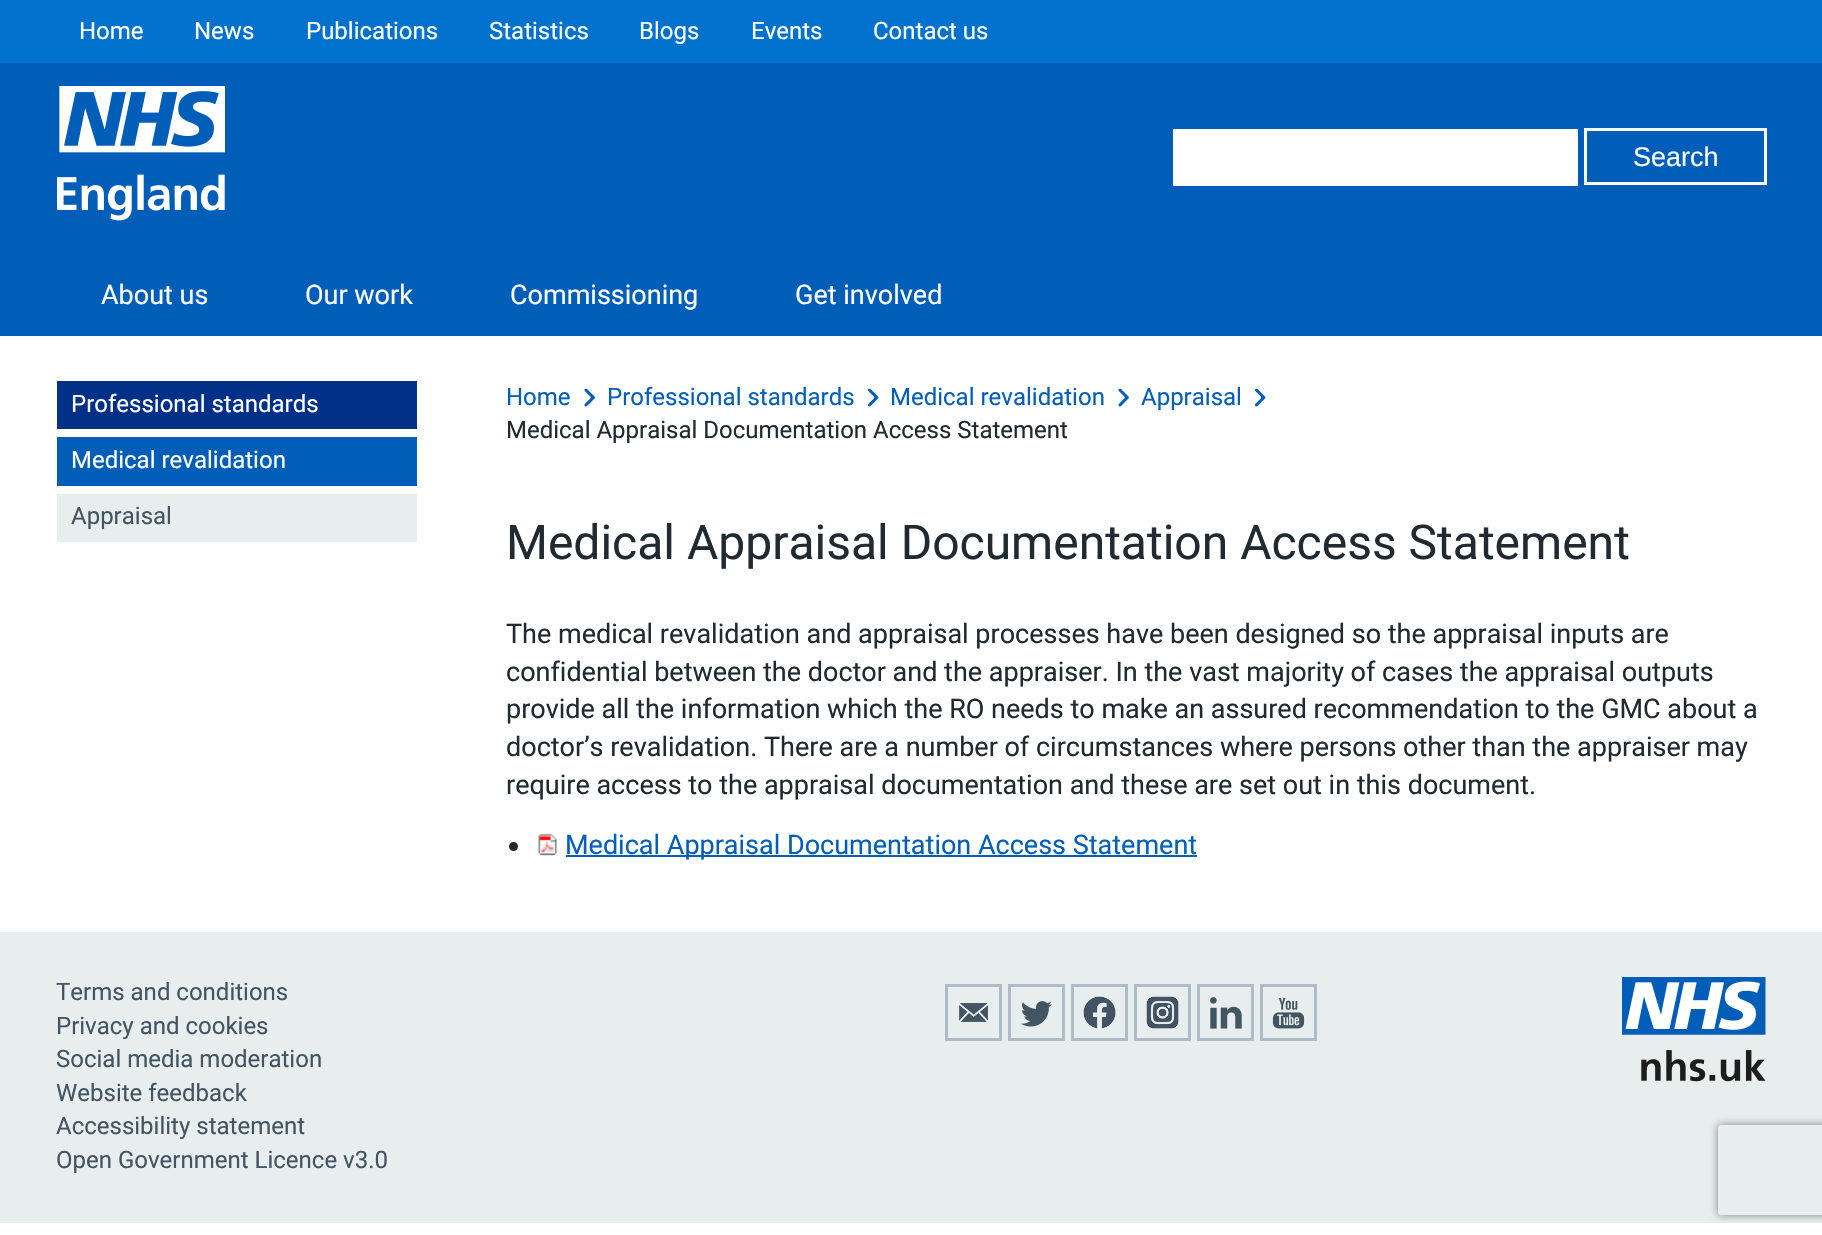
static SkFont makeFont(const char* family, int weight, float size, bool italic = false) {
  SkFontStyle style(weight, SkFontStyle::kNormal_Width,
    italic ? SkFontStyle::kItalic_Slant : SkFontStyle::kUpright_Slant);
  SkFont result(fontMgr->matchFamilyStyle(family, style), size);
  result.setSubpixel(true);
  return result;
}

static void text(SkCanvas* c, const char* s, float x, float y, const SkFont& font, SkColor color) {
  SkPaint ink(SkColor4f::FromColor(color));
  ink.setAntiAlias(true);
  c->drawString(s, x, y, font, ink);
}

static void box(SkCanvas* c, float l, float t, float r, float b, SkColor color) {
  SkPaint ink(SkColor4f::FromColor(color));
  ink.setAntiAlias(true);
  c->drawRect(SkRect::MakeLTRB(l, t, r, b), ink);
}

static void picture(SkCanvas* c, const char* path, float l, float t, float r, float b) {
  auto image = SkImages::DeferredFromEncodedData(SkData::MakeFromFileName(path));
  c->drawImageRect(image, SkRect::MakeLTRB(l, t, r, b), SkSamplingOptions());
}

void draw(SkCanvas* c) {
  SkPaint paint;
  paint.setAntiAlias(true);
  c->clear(0xffffffff);
  box(c, 0, 0, 1822, 63, 0xff0072ce);
  SkFont face1 = makeFont("Roboto", 400, 24);
  text(c, "Home", 79, 39, face1, 0xffffffff);
  text(c, "News", 194, 39, face1, 0xffffffff);
  text(c, "Publications", 306, 39, face1, 0xffffffff);
  text(c, "Statistics", 489, 39, face1, 0xffffffff);
  text(c, "Blogs", 639, 39, face1, 0xffffffff);
  text(c, "Events", 751, 39, face1, 0xffffffff);
  text(c, "Contact us", 873, 39, face1, 0xffffffff);
  box(c, 0, 63, 1822, 336, 0xff005eb8);
  picture(c, "img_01.png", 57, 86, 225, 221);
  box(c, 1173, 129, 1578, 186, 0xffffffff);
  paint.setStyle(SkPaint::kStroke_Style);
  paint.setStrokeWidth(3);
  paint.setColor(0xffffffff);
  c->drawRect(SkRect::MakeLTRB(1585.5f, 129.5f, 1765.5f, 183.5f), paint);
  SkFont face2 = makeFont("Liberation Sans", 400, 27);
  text(c, "Search", 1633, 166, face2, 0xffffffff);
  SkFont face3 = makeFont("Roboto", 400, 27);
  text(c, "About us", 101, 304, face3, 0xffffffff);
  text(c, "Our work", 305, 304, face3, 0xffffffff);
  text(c, "Commissioning", 510, 304, face3, 0xffffffff);
  text(c, "Get involved", 795, 304, face3, 0xffffffff);
  box(c, 57, 381, 417, 429, 0xff003087);
  text(c, "Professional standards", 71, 412, face1, 0xffffffff);
  box(c, 57, 437, 417, 486, 0xff005eb8);
  text(c, "Medical revalidation", 71, 468, face1, 0xffffffff);
  box(c, 57, 494, 417, 542, 0xffe8edee);
  text(c, "Appraisal", 71, 524, face1, 0xff425563);
  picture(c, "img_02.png", 584, 389, 595, 407);
  text(c, "Home", 506, 405, face1, 0xff005eb8);
  picture(c, "img_03.png", 868, 389, 879, 407);
  text(c, "Professional standards", 607, 405, face1, 0xff005eb8);
  picture(c, "img_02.png", 1118, 389, 1129, 407);
  text(c, "Medical revalidation", 890, 405, face1, 0xff005eb8);
  picture(c, "img_03.png", 1255, 389, 1266, 407);
  text(c, "Appraisal", 1141, 405, face1, 0xff005eb8);
  text(c, "Medical Appraisal Documentation Access Statement", 506, 438, face1, 0xff202a30);
  SkFont face4 = makeFont("Roboto", 400, 48);
  text(c, "Medical Appraisal Documentation Access Statement", 506, 559, face4, 0xff202a30);
  text(c, "The medical revalidation and appraisal processes have been designed so the appraisal inputs are", 506, 643, face3, 0xff202a30);
  text(c, "confidential between the doctor and the appraiser. In the vast majority of cases the appraisal outputs", 506, 681, face3, 0xff202a30);
  text(c, "provide all the information which the RO needs to make an assured recommendation to the GMC about a", 506, 718, face3, 0xff202a30);
  text(c, "doctor’s revalidation. There are a number of circumstances where persons other than the appraiser may", 506, 756, face3, 0xff202a30);
  text(c, "require access to the appraisal documentation and these are set out in this document.", 506, 794, face3, 0xff202a30);
  paint.setStyle(SkPaint::kFill_Style);
  paint.setColor(0xff202a30);
  c->drawCircle(513.5f, 846.5f, 4.5f, paint);
  picture(c, "img_04.png", 538, 833, 557, 856);
  box(c, 566, 855, 1197, 857, 0xff005eb8);
  text(c, "Medical Appraisal Documentation Access Statement", 565, 854, face3, 0xff005eb8);
  box(c, 0, 932, 1822, 1223, 0xffe8edee);
  text(c, "Terms and conditions", 56, 1000, face1, 0xff425563);
  text(c, "Privacy and cookies", 56, 1034, face1, 0xff425563);
  text(c, "Social media moderation", 56, 1067, face1, 0xff425563);
  text(c, "Website feedback", 56, 1101, face1, 0xff425563);
  text(c, "Accessibility statement", 56, 1134, face1, 0xff425563);
  text(c, "Open Government Licence v3.0", 56, 1168, face1, 0xff425563);
  picture(c, "img_05.png", 959, 1003, 988, 1022);
  paint.setStyle(SkPaint::kStroke_Style);
  paint.setColor(0xffadbcc7);
  c->drawRect(SkRect::MakeLTRB(946.5f, 985.5f, 1000.5f, 1039.5f), paint);
  picture(c, "img_06.png", 1021, 1001, 1052, 1027);
  c->drawRect(SkRect::MakeLTRB(1009.5f, 985.5f, 1063.5f, 1039.5f), paint);
  picture(c, "img_07.png", 1083, 996, 1116, 1029);
  c->drawRect(SkRect::MakeLTRB(1072.5f, 985.5f, 1126.5f, 1039.5f), paint);
  picture(c, "img_08.png", 1146, 996, 1179, 1029);
  c->drawRect(SkRect::MakeLTRB(1135.5f, 985.5f, 1189.5f, 1039.5f), paint);
  picture(c, "img_09.png", 1210, 997, 1242, 1029);
  c->drawRect(SkRect::MakeLTRB(1198.5f, 985.5f, 1252.5f, 1039.5f), paint);
  picture(c, "img_10.png", 1272, 997, 1305, 1029);
  c->drawRect(SkRect::MakeLTRB(1261.5f, 985.5f, 1315.5f, 1039.5f), paint);
  picture(c, "img_11.png", 1622, 977, 1766, 1082);
  c->save();
  c->clipPath(SkPathBuilder(SkPathFillType::kEvenOdd).moveTo(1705, 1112).lineTo(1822, 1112).lineTo(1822, 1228).lineTo(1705, 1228).close().moveTo(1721, 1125).lineTo(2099, 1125).cubicTo(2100.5f, 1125, 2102, 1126.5f, 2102, 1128).lineTo(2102, 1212).cubicTo(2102, 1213.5f, 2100.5f, 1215, 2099, 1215).lineTo(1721, 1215).cubicTo(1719.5f, 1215, 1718, 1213.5f, 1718, 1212).lineTo(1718, 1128).cubicTo(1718, 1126.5f, 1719.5f, 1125, 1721, 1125).close().detach(), true);
  paint.setStyle(SkPaint::kFill_Style);
  paint.setColor(0xff808080);
  paint.setMaskFilter(SkMaskFilter::MakeBlur(kNormal_SkBlurStyle, 4));
  c->drawRoundRect(SkRect::MakeLTRB(1718, 1125, 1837, 1215), 3, 3, paint);
  paint.setMaskFilter(nullptr);
  c->restore();
}
